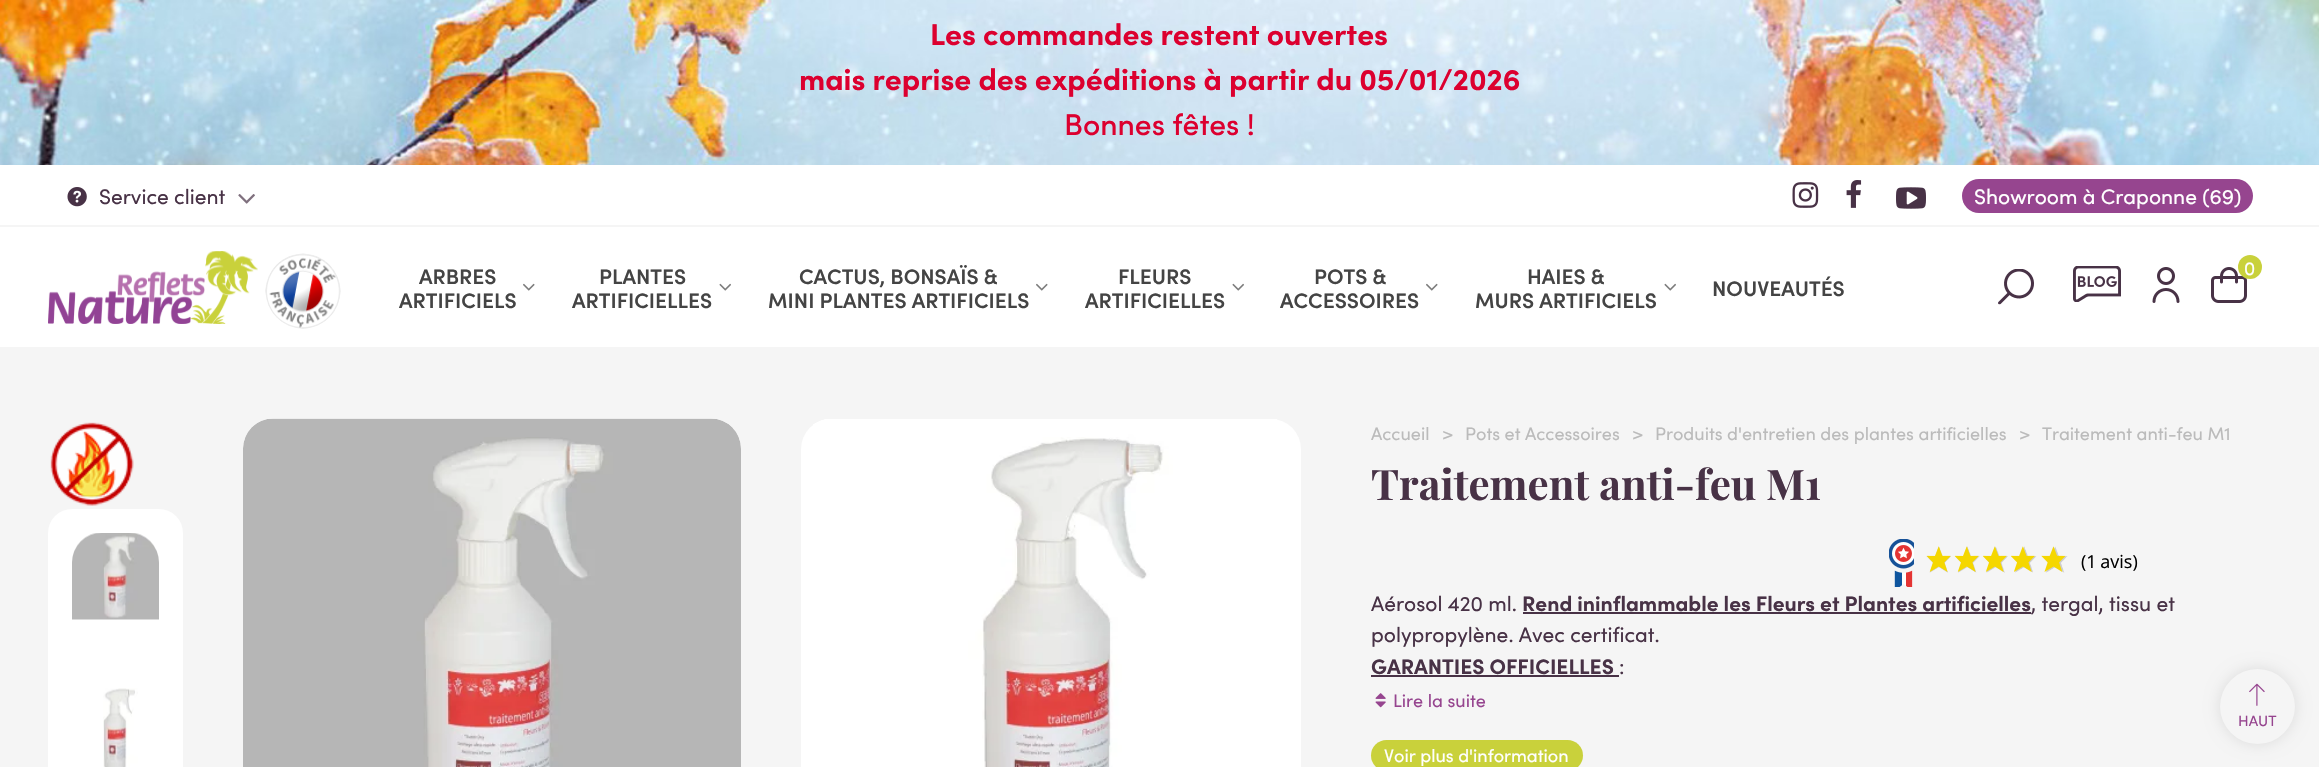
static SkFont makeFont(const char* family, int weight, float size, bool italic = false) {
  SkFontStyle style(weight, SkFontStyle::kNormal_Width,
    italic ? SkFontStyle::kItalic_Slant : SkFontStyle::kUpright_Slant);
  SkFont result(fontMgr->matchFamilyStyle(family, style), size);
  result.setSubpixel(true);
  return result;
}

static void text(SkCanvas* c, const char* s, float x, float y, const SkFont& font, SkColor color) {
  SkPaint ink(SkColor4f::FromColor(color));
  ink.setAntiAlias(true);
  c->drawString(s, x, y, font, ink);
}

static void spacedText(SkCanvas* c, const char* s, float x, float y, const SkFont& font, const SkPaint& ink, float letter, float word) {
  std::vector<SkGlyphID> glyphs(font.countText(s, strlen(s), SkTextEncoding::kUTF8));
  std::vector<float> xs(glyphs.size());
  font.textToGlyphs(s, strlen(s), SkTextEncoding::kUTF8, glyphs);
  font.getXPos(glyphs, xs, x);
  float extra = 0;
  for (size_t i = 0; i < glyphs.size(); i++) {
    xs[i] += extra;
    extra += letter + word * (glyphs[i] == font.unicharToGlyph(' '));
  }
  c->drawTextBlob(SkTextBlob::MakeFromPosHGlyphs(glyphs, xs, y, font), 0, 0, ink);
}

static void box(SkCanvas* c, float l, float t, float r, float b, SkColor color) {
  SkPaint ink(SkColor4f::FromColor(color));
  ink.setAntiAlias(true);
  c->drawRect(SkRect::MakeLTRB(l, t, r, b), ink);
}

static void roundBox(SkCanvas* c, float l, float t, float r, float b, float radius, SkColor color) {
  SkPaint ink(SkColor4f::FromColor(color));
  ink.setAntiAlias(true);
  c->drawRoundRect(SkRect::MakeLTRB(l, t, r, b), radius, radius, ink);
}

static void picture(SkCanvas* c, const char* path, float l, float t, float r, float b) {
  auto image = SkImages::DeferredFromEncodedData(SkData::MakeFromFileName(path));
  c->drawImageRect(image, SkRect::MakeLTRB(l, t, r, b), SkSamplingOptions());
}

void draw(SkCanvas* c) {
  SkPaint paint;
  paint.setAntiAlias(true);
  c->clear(0xffffffff);
  picture(c, "img_01.png", 0, 0, 2319, 165);
  SkFont face1 = makeFont("Sofia", 700, 30);
  text(c, "Les commandes restent ouvertes", 930, 45, face1, 0xffdc002f);
  text(c, "mais reprise des expéditions à partir du 05/01/2026", 799, 90, face1, 0xffdc002f);
  SkFont face2 = makeFont("Sofia", 500, 30);
  text(c, "Bonnes fêtes !", 1064, 135, face2, 0xffdc002f);
  box(c, 0, 225, 2319, 227, 0xfff5f5f5);
  picture(c, "img_02.png", 67, 187, 87, 207);
  SkFont face3 = makeFont("Sofia", 400, 21);
  text(c, "Service client", 99, 204, face3, 0xff483246);
  picture(c, "img_03.png", 238, 194, 255, 204);
  picture(c, "img_04.png", 1792, 182, 1819, 208);
  picture(c, "img_05.png", 1846, 180, 1862, 208);
  picture(c, "img_06.png", 1896, 187, 1926, 209);
  roundBox(c, 1962, 179, 2253, 213, 17, 0xff96458f);
  text(c, "Showroom à Craponne (69)", 1974, 204, face3, 0xffffffff);
  picture(c, "img_07.png", 48, 251, 258, 324);
  picture(c, "img_08.png", 265, 253, 341, 329);
  SkFont face4 = makeFont("Sofia", 600, 21);
  text(c, "ARBRES", 419, 284, face4, 0xff444444);
  picture(c, "img_09.png", 523, 283, 535, 291);
  text(c, "ARTIFICIELS", 399, 308, face4, 0xff444444);
  text(c, "PLANTES", 599, 284, face4, 0xff444444);
  picture(c, "img_10.png", 719, 283, 731, 291);
  text(c, "ARTIFICIELLES", 572, 308, face4, 0xff444444);
  text(c, "CACTUS, BONSAÏS &", 799, 284, face4, 0xff444444);
  picture(c, "img_09.png", 1036, 283, 1048, 291);
  text(c, "MINI PLANTES ARTIFICIELS", 768, 308, face4, 0xff444444);
  text(c, "FLEURS", 1118, 284, face4, 0xff444444);
  picture(c, "img_10.png", 1232, 283, 1244, 291);
  text(c, "ARTIFICIELLES", 1085, 308, face4, 0xff444444);
  text(c, "POTS &", 1314, 284, face4, 0xff444444);
  picture(c, "img_09.png", 1426, 283, 1438, 291);
  text(c, "ACCESSOIRES", 1280, 308, face4, 0xff444444);
  text(c, "HAIES &", 1527, 284, face4, 0xff444444);
  picture(c, "img_10.png", 1664, 283, 1676, 291);
  text(c, "MURS ARTIFICIELS", 1475, 308, face4, 0xff444444);
  text(c, "NOUVEAUTÉS", 1712, 296, face4, 0xff444444);
  picture(c, "img_11.png", 1998, 269, 2034, 305);
  picture(c, "img_12.png", 2073, 266, 2121, 302);
  picture(c, "img_13.png", 2152, 267, 2180, 303);
  picture(c, "img_14.png", 2211, 267, 2247, 303);
  paint.setColor(0xffc9d13b);
  c->drawCircle(2250, 267, 12, paint);
  SkFont face5 = makeFont("Sofia", 400, 19);
  text(c, "0", 2244, 275, face5, 0xffffffff);
  box(c, 0, 347, 2319, 767, 0xfff5f5f5);
  picture(c, "img_15.png", 50, 422, 134, 506);
  roundBox(c, 48, 509, 183, 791, 24, 0xffffffff);
  picture(c, "img_16.png", 72, 533, 159, 620);
  picture(c, "img_17.png", 103, 688, 138, 767);
  roundBox(c, 243, 419, 741, 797, 30, 0xffffffff);
  picture(c, "img_18.png", 243, 418, 741, 767);
  roundBox(c, 801, 419, 1301, 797, 30, 0xffffffff);
  picture(c, "img_19.png", 813, 419, 1277, 767);
  SkFont face6 = makeFont("Sofia", 400, 18);
  text(c, "Accueil", 1371, 440, face6, 0xffbbbbbb);
  text(c, ">", 1442, 440, face6, 0xffbbbbbb);
  text(c, "Pots et Accessoires", 1465, 440, face6, 0xffbbbbbb);
  text(c, ">", 1632, 440, face6, 0xffbbbbbb);
  text(c, "Produits d'entretien des plantes artificielles", 1655, 440, face6, 0xffbbbbbb);
  text(c, ">", 2019, 440, face6, 0xffbbbbbb);
  text(c, "Traitement anti-feu M1", 2042, 440, face6, 0xffbbbbbb);
  SkFont face7 = makeFont("Playfair Display", 700, 42);
  text(c, "Traitement anti-feu M1", 1371, 500, face7, 0xff483246);
  picture(c, "img_20.png", 1889, 539, 1914, 587);
  picture(c, "img_21.png", 1926, 546, 2068, 573);
  picture(c, "img_22.png", 1926, 546, 2066, 572);
  SkFont face8 = makeFont("Open Sans", 400, 18);
  paint.setColor(0xff000000);
  spacedText(c, "(1 avis)", 2081, 568, face8, paint, 0, -1);
  text(c, "Aérosol 420 ml.", 1371, 611, face3, 0xff483246);
  SkFont face9 = makeFont("Sofia", 700, 21);
  text(c, "Rend ininflammable les Fleurs et Plantes artificielles", 1522, 611, face9, 0xff483246);
  box(c, 1523, 612, 2031, 614, 0xff483246);
  text(c, ", tergal, tissu et", 2031, 611, face3, 0xff483246);
  text(c, "polypropylène. Avec certificat.", 1371, 642, face3, 0xff483246);
  text(c, "GARANTIES OFFICIELLES", 1371, 674, face9, 0xff483246);
  box(c, 1371, 675, 1619, 677, 0xff483246);
  text(c, ":", 1619, 674, face3, 0xff483246);
  picture(c, "img_23.png", 1375, 693, 1386, 708);
  text(c, "Lire la suite", 1393, 707, face6, 0xff96458f);
  roundBox(c, 1371, 740, 1583, 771, 15.5f, 0xffc9d13b);
  text(c, "Voir plus d'information", 1384, 762, face6, 0xffffffff);
  paint.setColor(0x1a000000);
  paint.setMaskFilter(SkMaskFilter::MakeBlur(kNormal_SkBlurStyle, 7.5f));
  c->drawRoundRect(SkRect::MakeLTRB(2220, 669, 2295, 744), 37.5f, 37.5f, paint);
  paint.setMaskFilter(nullptr);
  paint.setColor(0xfff5f5f5);
  c->drawCircle(2257.5f, 706.5f, 37.5f, paint);
  picture(c, "img_24.png", 2249, 683, 2265, 706);
  SkFont face10 = makeFont("Sofia", 400, 15);
  text(c, "HAUT", 2238, 726, face10, 0xff96458f);
}
